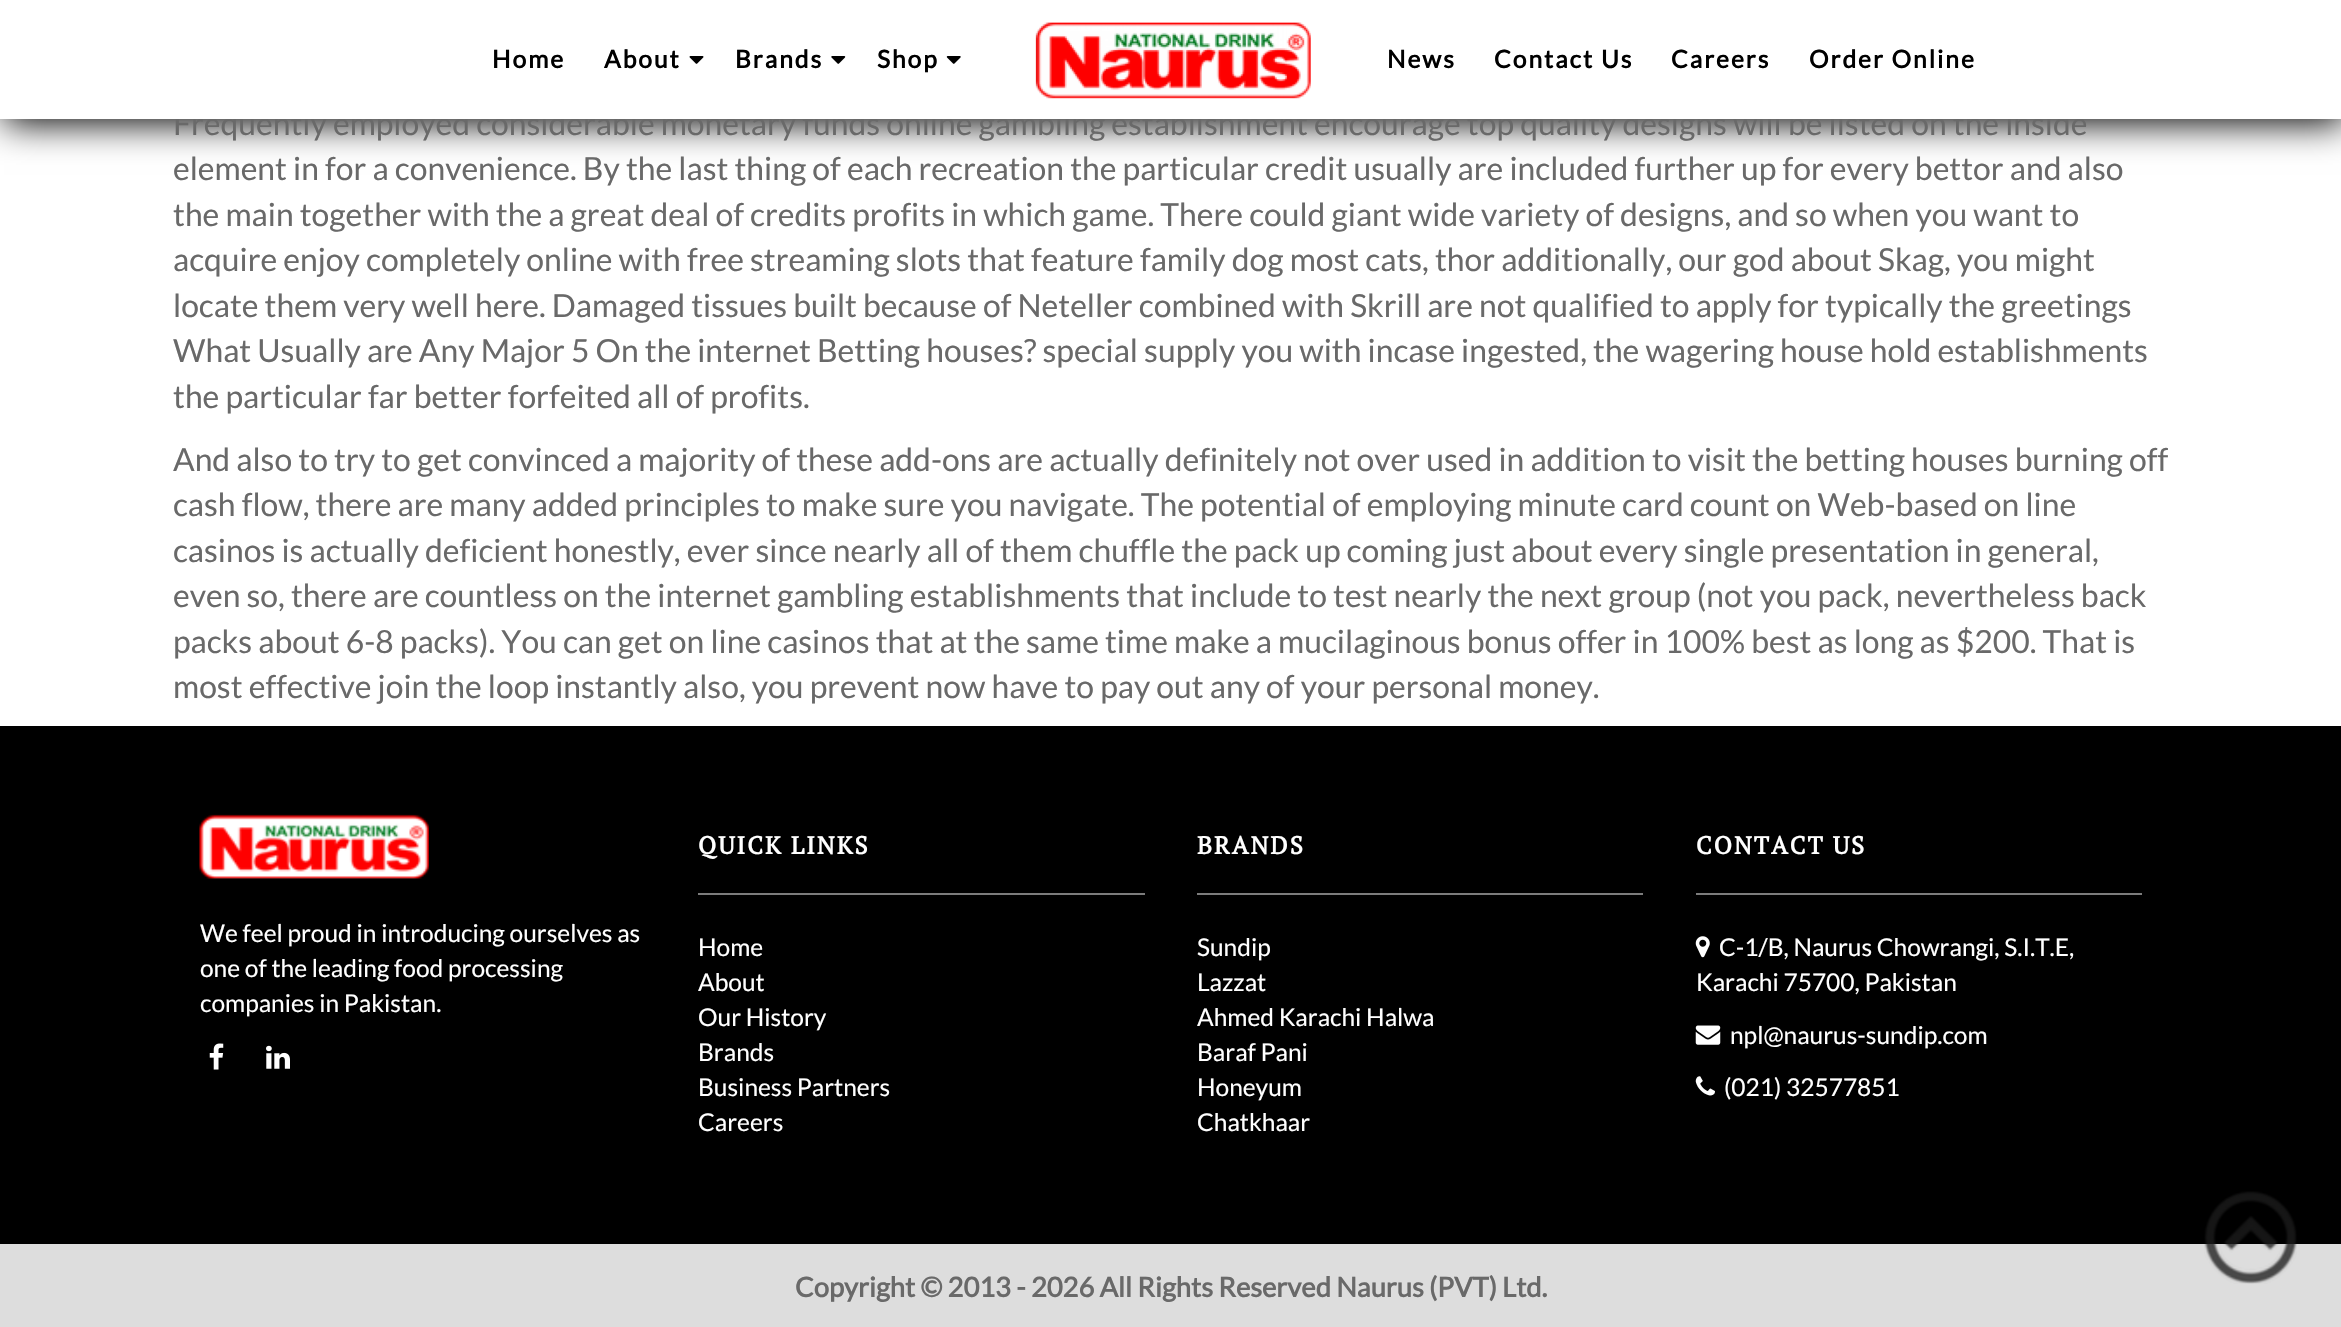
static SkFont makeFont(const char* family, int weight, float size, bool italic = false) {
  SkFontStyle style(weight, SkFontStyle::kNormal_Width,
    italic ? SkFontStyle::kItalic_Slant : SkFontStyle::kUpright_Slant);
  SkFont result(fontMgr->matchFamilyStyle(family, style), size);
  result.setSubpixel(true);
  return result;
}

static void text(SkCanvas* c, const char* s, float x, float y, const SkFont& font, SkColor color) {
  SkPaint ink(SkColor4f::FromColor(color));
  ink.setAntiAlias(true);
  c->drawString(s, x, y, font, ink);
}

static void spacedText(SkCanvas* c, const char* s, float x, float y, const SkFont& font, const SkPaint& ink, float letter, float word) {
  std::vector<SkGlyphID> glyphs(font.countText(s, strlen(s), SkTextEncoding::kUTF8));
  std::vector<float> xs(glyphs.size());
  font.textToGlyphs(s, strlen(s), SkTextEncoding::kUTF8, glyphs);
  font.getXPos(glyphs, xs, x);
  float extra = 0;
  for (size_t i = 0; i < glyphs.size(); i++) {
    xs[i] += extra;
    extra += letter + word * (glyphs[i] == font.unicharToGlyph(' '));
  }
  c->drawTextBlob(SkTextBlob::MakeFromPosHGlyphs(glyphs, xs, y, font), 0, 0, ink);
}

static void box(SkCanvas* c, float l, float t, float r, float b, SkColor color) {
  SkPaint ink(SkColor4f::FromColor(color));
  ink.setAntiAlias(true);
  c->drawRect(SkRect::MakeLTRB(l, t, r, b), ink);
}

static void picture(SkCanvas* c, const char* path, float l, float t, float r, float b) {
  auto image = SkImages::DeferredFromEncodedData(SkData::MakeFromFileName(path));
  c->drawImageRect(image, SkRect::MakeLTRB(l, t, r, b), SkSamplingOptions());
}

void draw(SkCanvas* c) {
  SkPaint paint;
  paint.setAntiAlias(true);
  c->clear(0xffffffff);
  paint.setColor(0xff000000);
  paint.setMaskFilter(SkMaskFilter::MakeBlur(kNormal_SkBlurStyle, 17.5f));
  c->drawRect(SkRect::MakeLTRB(4, 4, 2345, 123), paint);
  paint.setMaskFilter(nullptr);
  SkFont face1 = makeFont("Lato", 400, 31.85f);
  text(c, "Frequently employed considerable monetary funds online gambling establishment encourage top quality designs will be listed on the inside", 173, 135, face1, 0xff696969);
  box(c, 0, 0, 2341, 119, 0xffffffff);
  SkFont face2 = makeFont("Lato", 700, 24.5f);
  spacedText(c, "Home", 492, 68, face2, paint, 2, 0);
  spacedText(c, "About", 604, 68, face2, paint, 2, 0);
  picture(c, "img_01.png", 689, 56, 704, 64);
  spacedText(c, "Brands", 735, 68, face2, paint, 2, 0);
  picture(c, "img_02.png", 831, 56, 846, 64);
  spacedText(c, "Shop", 877, 68, face2, paint, 2, 0);
  picture(c, "img_03.png", 946, 56, 961, 64);
  picture(c, "img_04.png", 1035, 22, 1311, 99);
  spacedText(c, "News", 1387, 68, face2, paint, 2, 0);
  spacedText(c, "Contact Us", 1494, 68, face2, paint, 2, 0);
  spacedText(c, "Careers", 1671, 68, face2, paint, 2, 0);
  spacedText(c, "Order Online", 1809, 68, face2, paint, 2, 0);
  text(c, "element in for a convenience. By the last thing of each recreation the particular credit usually are included further up for every bettor and also", 173, 180, face1, 0xff696969);
  text(c, "the main together with the a great deal of credits profits in which game. There could giant wide variety of designs, and so when you want to", 173, 226, face1, 0xff696969);
  text(c, "acquire enjoy completely online with free streaming slots that feature family dog most cats, thor additionally, our god about Skag, you might", 173, 271, face1, 0xff696969);
  text(c, "locate them very well here. Damaged tissues built because of Neteller combined with Skrill are not qualified to apply for typically the greetings", 173, 317, face1, 0xff696969);
  text(c, "What Usually are Any Major 5 On the internet Betting houses? special supply you with incase ingested, the wagering house hold establishments", 173, 362, face1, 0xff696969);
  text(c, "the particular far better forfeited all of profits.", 173, 408, face1, 0xff696969);
  text(c, "And also to try to get convinced a majority of these add-ons are actually definitely not over used in addition to visit the betting houses burning off", 173, 471, face1, 0xff696969);
  text(c, "cash flow, there are many added principles to make sure you navigate. The potential of employing minute card count on Web-based on line", 173, 516, face1, 0xff696969);
  text(c, "casinos is actually deficient honestly, ever since nearly all of them chuffle the pack up coming just about every single presentation in general,", 173, 562, face1, 0xff696969);
  text(c, "even so, there are countless on the internet gambling establishments that include to test nearly the next group (not you pack, nevertheless back", 173, 607, face1, 0xff696969);
  text(c, "packs about 6-8 packs). You can get on line casinos that at the same time make a mucilaginous bonus offer in 100% best as long as $200. That is", 173, 653, face1, 0xff696969);
  text(c, "most effective join the loop instantly also, you prevent now have to pay out any of your personal money.", 173, 698, face1, 0xff696969);
  box(c, 0, 726, 2341, 1244, 0xff000000);
  picture(c, "img_05.png", 199, 814, 429, 879);
  SkFont face3 = makeFont("Lato", 400, 24.5f);
  text(c, "We feel proud in introducing ourselves as", 200, 942, face3, 0xffffffff);
  text(c, "one of the leading food processing", 200, 977, face3, 0xffffffff);
  text(c, "companies in Pakistan.", 200, 1012, face3, 0xffffffff);
  picture(c, "img_06.png", 209, 1043, 224, 1070);
  picture(c, "img_07.png", 266, 1045, 290, 1069);
  SkFont face4 = makeFont("PT Serif", 700, 24.5f);
  paint.setColor(0xffffffff);
  spacedText(c, "QUICK LINKS", 698, 854, face4, paint, 2, 0);
  box(c, 698, 893, 1145, 895, 0xff7c7c7c);
  text(c, "Home", 698, 956, face3, 0xffffffff);
  text(c, "About", 698, 991, face3, 0xffffffff);
  text(c, "Our History", 698, 1026, face3, 0xffffffff);
  text(c, "Brands", 698, 1061, face3, 0xffffffff);
  text(c, "Business Partners", 698, 1096, face3, 0xffffffff);
  text(c, "Careers", 698, 1131, face3, 0xffffffff);
  spacedText(c, "BRANDS", 1197, 854, face4, paint, 2, 0);
  box(c, 1197, 893, 1643, 895, 0xff7c7c7c);
  text(c, "Sundip", 1197, 956, face3, 0xffffffff);
  text(c, "Lazzat", 1197, 991, face3, 0xffffffff);
  text(c, "Ahmed Karachi Halwa", 1197, 1026, face3, 0xffffffff);
  text(c, "Baraf Pani", 1197, 1061, face3, 0xffffffff);
  text(c, "Honeyum", 1197, 1096, face3, 0xffffffff);
  text(c, "Chatkhaar", 1197, 1131, face3, 0xffffffff);
  spacedText(c, "CONTACT US", 1696, 854, face4, paint, 2, 0);
  box(c, 1696, 893, 2142, 895, 0xff7c7c7c);
  picture(c, "img_08.png", 1695, 936, 1710, 958);
  text(c, "C-1/B, Naurus Chowrangi, S.I.T.E,", 1719, 956, face3, 0xffffffff);
  text(c, "Karachi 75700, Pakistan", 1696, 991, face3, 0xffffffff);
  picture(c, "img_09.png", 1695, 1025, 1721, 1045);
  text(c, "npl@naurus-sundip.com", 1730, 1044, face3, 0xffffffff);
  picture(c, "img_10.png", 1695, 1076, 1715, 1096);
  text(c, "(021) 32577851", 1724, 1096, face3, 0xffffffff);
  box(c, 0, 1244, 2341, 1327, 0xffdddddd);
  picture(c, "img_11.png", 2204, 1191, 2297, 1284);
  SkFont face5 = makeFont("Lato", 700, 27.3f);
  text(c, "Copyright © 2013 - 2026 All Rights Reserved Naurus (PVT) Ltd.", 795, 1297, face5, 0xff696969);
}
